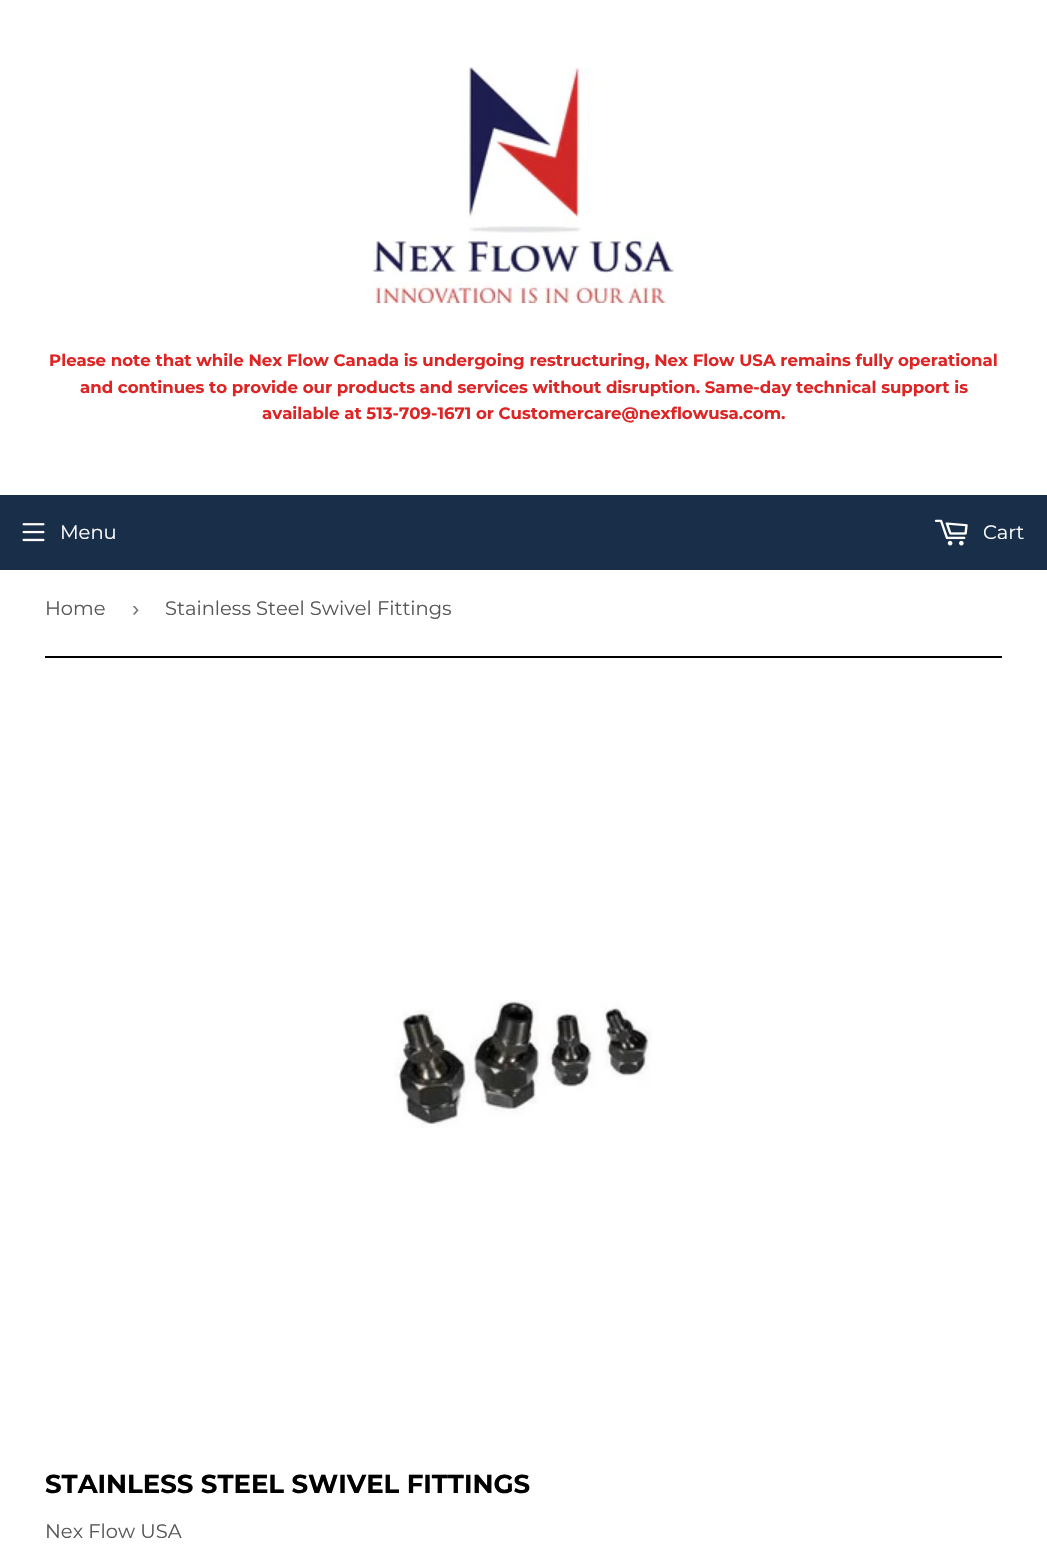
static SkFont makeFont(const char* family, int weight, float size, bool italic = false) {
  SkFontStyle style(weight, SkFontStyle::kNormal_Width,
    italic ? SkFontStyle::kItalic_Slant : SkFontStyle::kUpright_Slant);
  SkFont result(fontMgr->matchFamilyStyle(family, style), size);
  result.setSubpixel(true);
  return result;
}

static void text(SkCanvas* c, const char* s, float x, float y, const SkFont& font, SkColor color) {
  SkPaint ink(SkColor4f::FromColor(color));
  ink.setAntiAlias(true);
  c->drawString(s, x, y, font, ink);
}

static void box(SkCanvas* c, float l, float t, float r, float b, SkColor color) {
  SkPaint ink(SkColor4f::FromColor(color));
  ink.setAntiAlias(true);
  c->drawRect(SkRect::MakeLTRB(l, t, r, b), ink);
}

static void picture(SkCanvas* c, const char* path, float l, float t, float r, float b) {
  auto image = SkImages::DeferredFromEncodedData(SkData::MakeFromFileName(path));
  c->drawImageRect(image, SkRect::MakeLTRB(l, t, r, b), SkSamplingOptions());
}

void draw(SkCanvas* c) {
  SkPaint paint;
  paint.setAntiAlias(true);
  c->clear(0xffffffff);
  picture(c, "img_01.png", 373, 67, 674, 303);
  SkFont face1 = makeFont("Montserrat", 700, 16.58f);
  text(c, "Please note that while Nex Flow Canada is undergoing restructuring, Nex Flow USA remains fully operational", 49, 366, face1, 0xffdd2525);
  text(c, "and continues to provide our products and services without disruption. Same-day technical support is", 80, 393, face1, 0xffdd2525);
  text(c, "available at 513-709-1671 or Customercare@nexflowusa.com.", 262, 419, face1, 0xffdd2525);
  box(c, 0, 495, 1047, 570, 0xff182e49);
  picture(c, "img_02.png", 22, 523, 45, 542);
  SkFont face2 = makeFont("Montserrat", 400, 19.5f);
  text(c, "Menu", 60, 539, face2, 0xffffffff);
  picture(c, "img_03.png", 934, 519, 968, 546);
  text(c, "Cart", 983, 539, face2, 0xffffffff);
  box(c, 45, 656, 1002, 658, 0xff000000);
  text(c, "Home", 45, 615, face2, 0xff585858);
  SkFont face3 = makeFont("Liberation Sans", 400, 22);
  text(c, "›", 132, 616, face3, 0xff767676);
  text(c, "Stainless Steel Swivel Fittings", 165, 615, face2, 0xff585858);
  picture(c, "img_04.png", 394, 1000, 652, 1128);
  SkFont face4 = makeFont("Montserrat", 700, 26);
  text(c, "STAINLESS STEEL SWIVEL FITTINGS", 45, 1493, face4, 0xff000000);
  text(c, "Nex Flow USA", 45, 1538, face2, 0xff585858);
}
